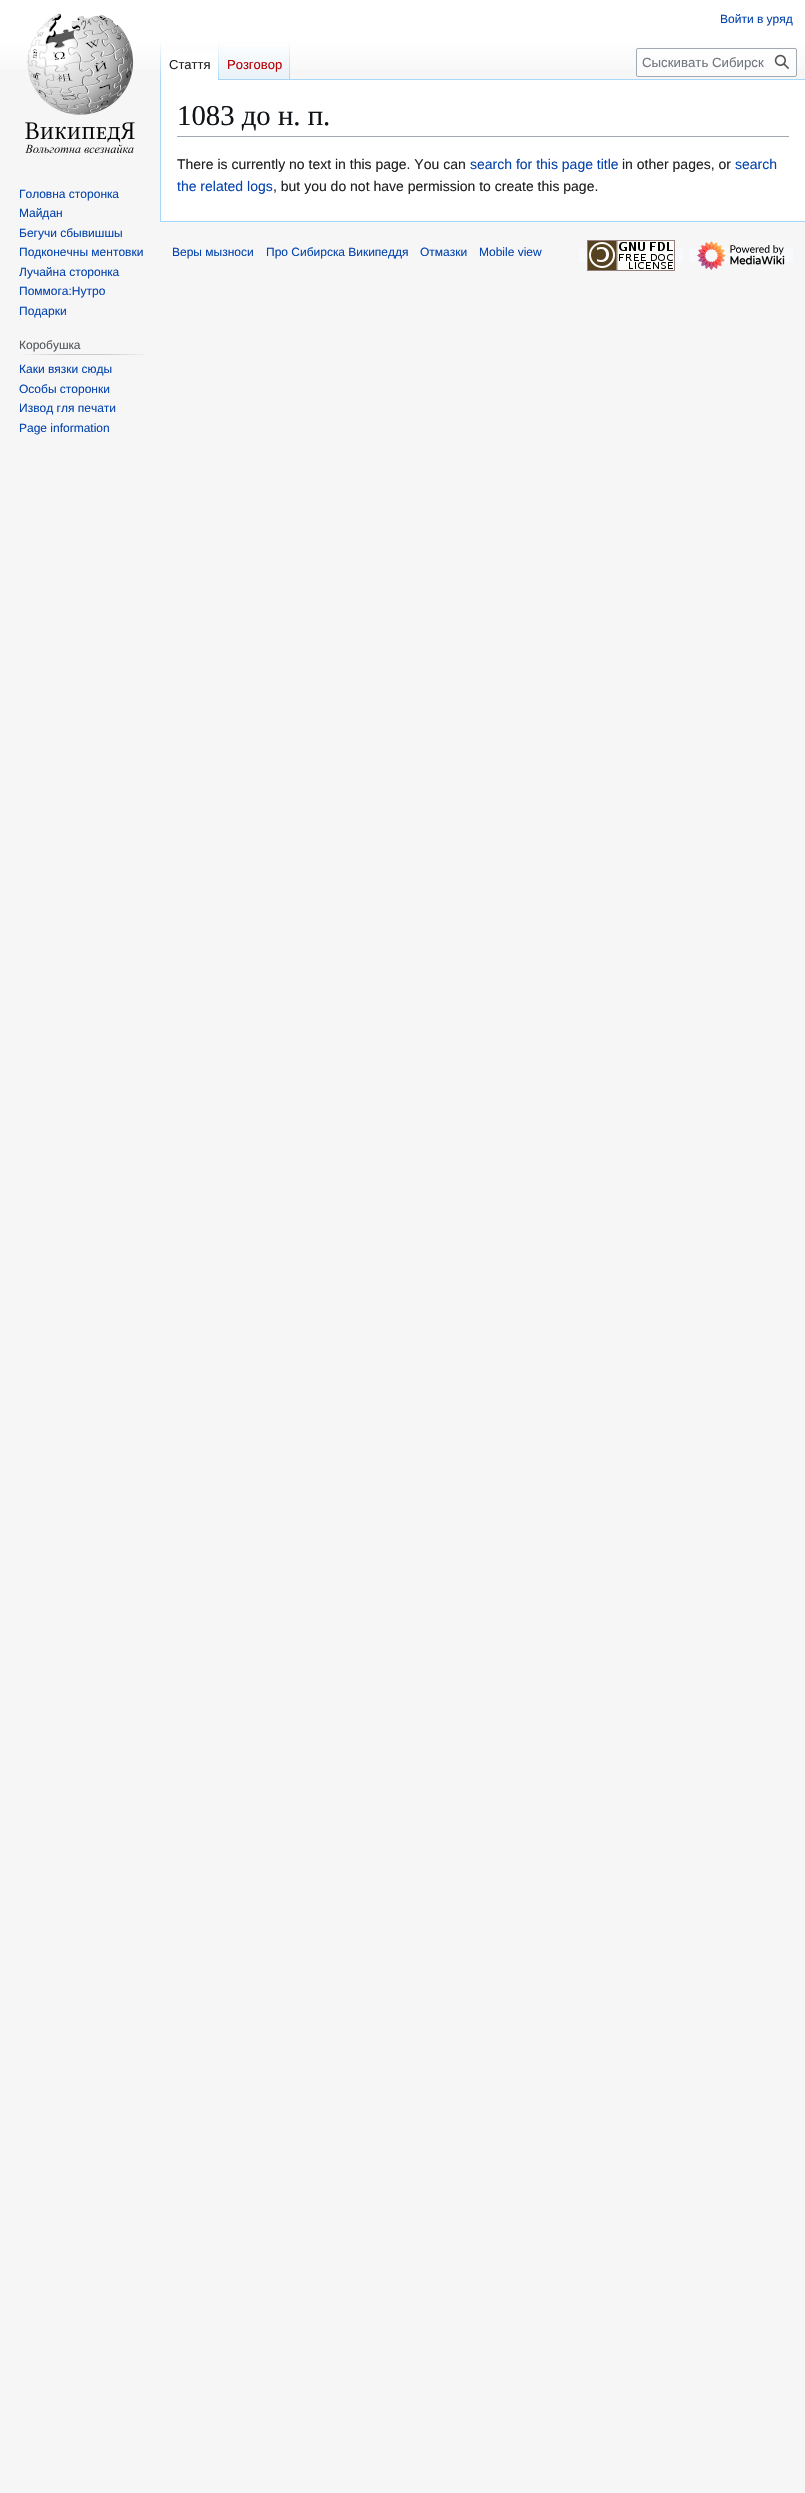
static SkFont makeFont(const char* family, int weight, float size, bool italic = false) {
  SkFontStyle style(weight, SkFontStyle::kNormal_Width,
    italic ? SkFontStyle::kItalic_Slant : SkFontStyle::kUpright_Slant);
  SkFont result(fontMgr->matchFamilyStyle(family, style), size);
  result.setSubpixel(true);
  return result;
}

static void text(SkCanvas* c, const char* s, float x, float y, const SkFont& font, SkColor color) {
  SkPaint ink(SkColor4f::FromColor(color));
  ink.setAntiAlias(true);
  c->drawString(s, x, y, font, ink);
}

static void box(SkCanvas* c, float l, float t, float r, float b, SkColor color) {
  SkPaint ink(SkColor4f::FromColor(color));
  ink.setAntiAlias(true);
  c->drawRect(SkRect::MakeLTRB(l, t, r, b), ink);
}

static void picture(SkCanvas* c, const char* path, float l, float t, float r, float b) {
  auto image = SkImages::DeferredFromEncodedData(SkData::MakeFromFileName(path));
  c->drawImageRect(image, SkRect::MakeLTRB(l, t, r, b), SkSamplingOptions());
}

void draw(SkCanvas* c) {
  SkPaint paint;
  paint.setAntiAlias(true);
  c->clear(0xfff6f6f6);
  {
    const SkColor colors[] = {0xffffffff, 0xfff6f6f6};
    const float stops[] = {0.5f, 1};
    const SkPoint ends[] = {{403, 0}, {403, 80}};
    paint.setShader(SkGradientShader::MakeLinear(ends, colors, stops, 2, SkTileMode::kClamp));
    paint.setAlpha(255);
  }
  c->drawRect(SkRect::MakeLTRB(0, 0, 805, 69), paint);
  SkFont face1 = makeFont("Liberation Sans", 400, 12);
  text(c, "Войти в уряд", 720, 23, face1, 0xff0645ad);
  box(c, 160, 221, 805, 222, 0xffa7d7f9);
  box(c, 160, 79, 161, 222, 0xffa7d7f9);
  {
    const SkColor colors[] = {0x00a7d7f9, 0xffa7d7f9};
    const float stops[] = {0, 1};
    const SkPoint ends[] = {{161, 40}, {161, 80}};
    paint.setShader(SkGradientShader::MakeLinear(ends, colors, stops, 2, SkTileMode::kClamp));
    paint.setAlpha(255);
  }
  c->drawRect(SkRect::MakeLTRB(160, 40, 161, 80), paint);
  box(c, 161, 51, 218, 80, 0xffffffff);
  {
    const SkColor colors[] = {0xffffffff, 0xffa7d7f9};
    const float stops[] = {0, 1};
    const SkPoint ends[] = {{219, 40}, {219, 80}};
    paint.setShader(SkGradientShader::MakeLinear(ends, colors, stops, 2, SkTileMode::kClamp));
    paint.setAlpha(255);
  }
  c->drawRect(SkRect::MakeLTRB(218, 40, 219, 80), paint);
  SkFont face2 = makeFont("Liberation Sans", 400, 13);
  text(c, "Стаття", 169, 69, face2, 0xff202122);
  {
    const SkColor colors[] = {0xff77c1f6, 0xffe8f2f8, 0xffffffff};
    const float stops[] = {0, 0.03f, 1};
    const SkPoint ends[] = {{255, 80}, {255, 40}};
    paint.setShader(SkGradientShader::MakeLinear(ends, colors, stops, 3, SkTileMode::kClamp));
    paint.setAlpha(255);
  }
  c->drawRect(SkRect::MakeLTRB(219, 46, 290, 80), paint);
  {
    const SkColor colors[] = {0x00a7d7f9, 0xffa7d7f9};
    const float stops[] = {0, 1};
    const SkPoint ends[] = {{290, 40}, {290, 80}};
    paint.setShader(SkGradientShader::MakeLinear(ends, colors, stops, 2, SkTileMode::kClamp));
    paint.setAlpha(255);
  }
  c->drawRect(SkRect::MakeLTRB(289, 40, 290, 80), paint);
  text(c, "Розговор", 227, 69, face2, 0xffba0000);
  paint.setShader(nullptr);
  paint.setColor(0x80ffffff);
  c->drawRoundRect(SkRect::MakeLTRB(636.5f, 48.5f, 796.5f, 76.5f), 1.5f, 1.5f, paint);
  paint.setStyle(SkPaint::kStroke_Style);
  paint.setStrokeWidth(1);
  paint.setColor(0xffa2a9b1);
  c->drawRoundRect(SkRect::MakeLTRB(636.5f, 48.5f, 796.5f, 76.5f), 1.5f, 1.5f, paint);
  SkFont face3 = makeFont("Liberation Sans", 400, 13.25f);
  text(c, "Сыскивать Сибирск", 642, 67, face3, 0xff72777d);
  picture(c, "img_01.png", 774, 54, 789, 69);
  picture(c, "img_02.png", 25, 13, 135, 153);
  text(c, "Головна сторонка", 19, 198, face1, 0xff0645ad);
  text(c, "Майдан", 19, 217, face1, 0xff0645ad);
  text(c, "Бегучи сбывишшы", 19, 237, face1, 0xff0645ad);
  text(c, "Подконечны ментовки", 19, 256, face1, 0xff0645ad);
  text(c, "Лучайна сторонка", 19, 276, face1, 0xff0645ad);
  text(c, "Поммога:Нутро", 19, 295, face1, 0xff0645ad);
  text(c, "Подарки", 19, 315, face1, 0xff0645ad);
  paint.setStyle(SkPaint::kFill_Style);
  {
    const SkColor colors[] = {0xfff6f6f6, 0xffc8ccd1, 0xffc8ccd1, 0xfff6f6f6};
    const float stops[] = {0, 0.33f, 0.66f, 1};
    const SkPoint ends[] = {{19, 355}, {150, 355}};
    paint.setShader(SkGradientShader::MakeLinear(ends, colors, stops, 4, SkTileMode::kClamp));
    paint.setAlpha(255);
  }
  c->drawRect(SkRect::MakeLTRB(19, 354, 150, 355), paint);
  text(c, "Коробушка", 19, 349, face1, 0xff54595d);
  text(c, "Каки вязки сюды", 19, 373, face1, 0xff0645ad);
  text(c, "Особы сторонки", 19, 393, face1, 0xff0645ad);
  text(c, "Извод гля печати", 19, 412, face1, 0xff0645ad);
  text(c, "Page information", 19, 432, face1, 0xff0645ad);
  box(c, 161, 80, 805, 221, 0xffffffff);
  box(c, 290, 79, 805, 80, 0xffa7d7f9);
  box(c, 177, 136, 789, 137, 0xffa2a9b1);
  SkFont face4 = makeFont("Liberation Serif", 400, 28.75f);
  text(c, "1083 до н. п.", 177, 125, face4, 0xff101418);
  SkFont face5 = makeFont("Liberation Sans", 400, 14);
  text(c, "There is currently no text in this page. You can", 177, 169, face5, 0xff202122);
  text(c, "search for this page title", 470, 169, face5, 0xff0645ad);
  text(c, "in other pages, or", 622, 169, face5, 0xff202122);
  text(c, "search", 735, 169, face5, 0xff0645ad);
  text(c, "the related logs", 177, 191, face5, 0xff0645ad);
  text(c, ", but you do not have permission to create this page.", 273, 191, face5, 0xff202122);
  text(c, "Веры мызноси", 172, 256, face1, 0xff0645ad);
  text(c, "Про Сибирска Википеддя", 266, 256, face1, 0xff0645ad);
  text(c, "Отмазки", 420, 256, face1, 0xff0645ad);
  text(c, "Mobile view", 479, 256, face1, 0xff0645ad);
  box(c, 579, 248, 683, 262, 0xfff8f9fa);
  picture(c, "img_03.png", 587, 240, 675, 271);
  box(c, 689, 248, 793, 262, 0xfff8f9fa);
  picture(c, "img_04.png", 697, 241, 785, 270);
}
